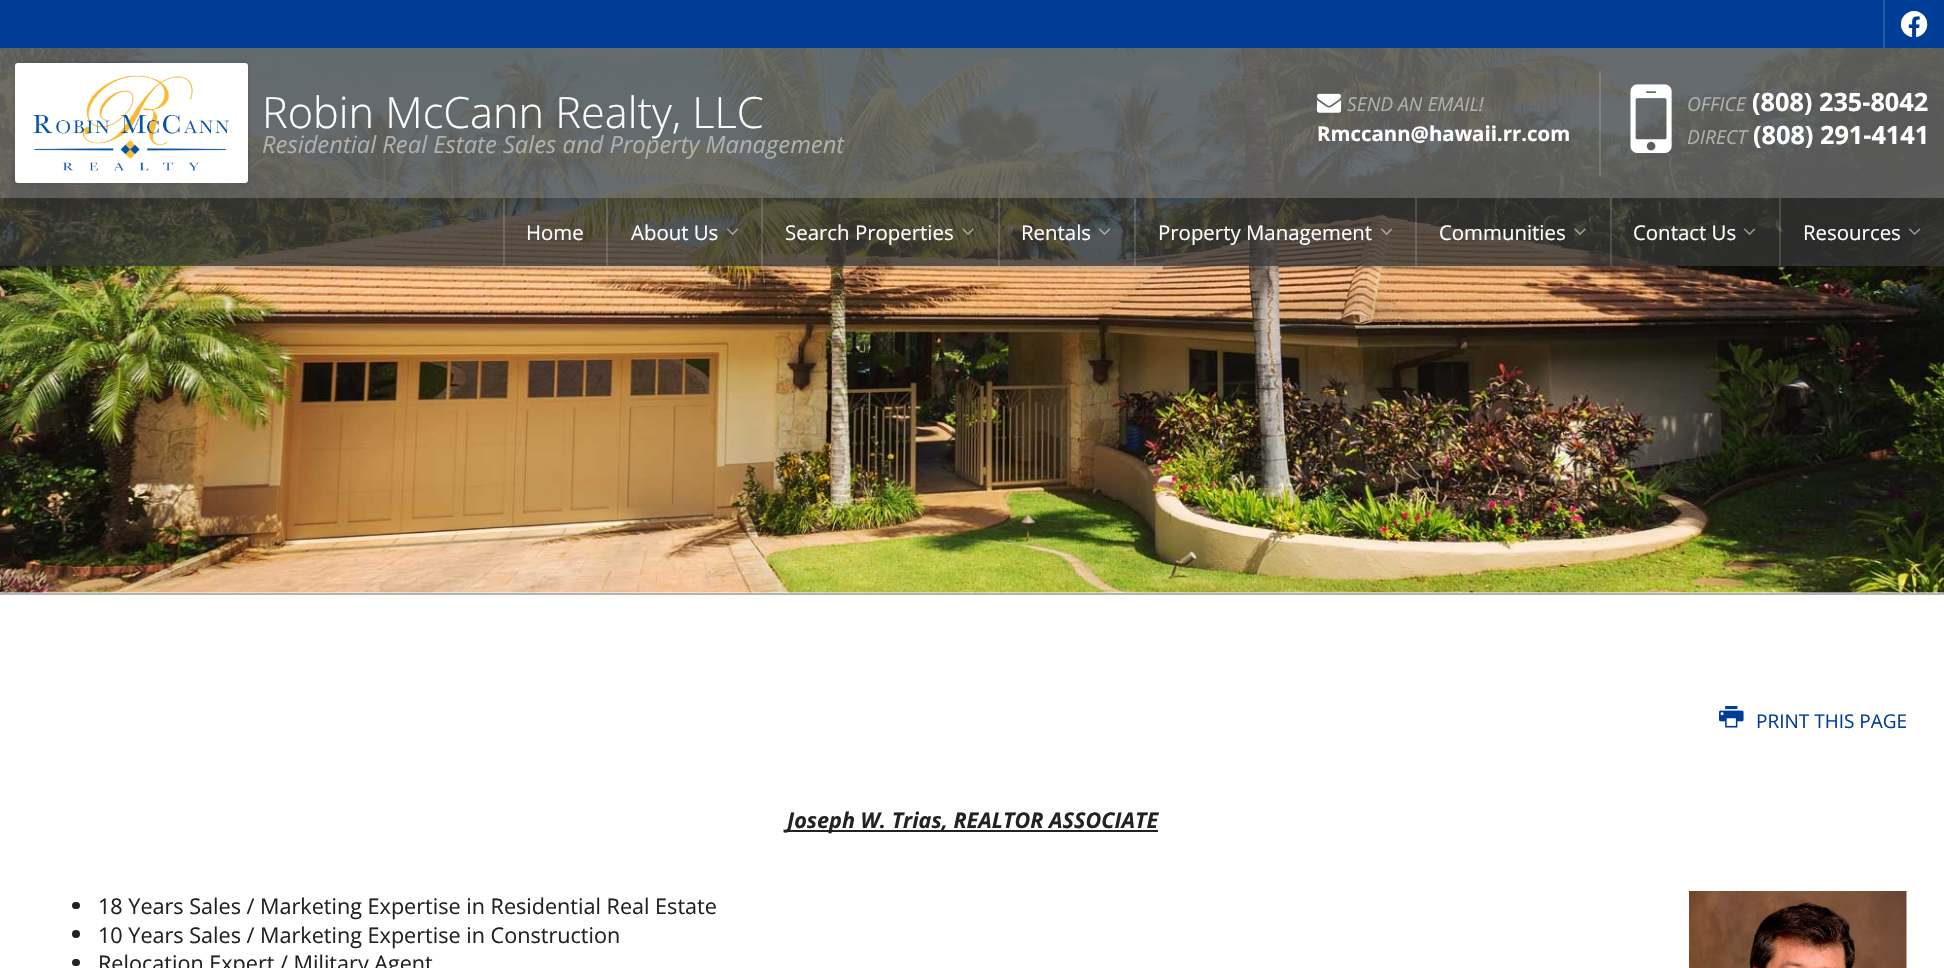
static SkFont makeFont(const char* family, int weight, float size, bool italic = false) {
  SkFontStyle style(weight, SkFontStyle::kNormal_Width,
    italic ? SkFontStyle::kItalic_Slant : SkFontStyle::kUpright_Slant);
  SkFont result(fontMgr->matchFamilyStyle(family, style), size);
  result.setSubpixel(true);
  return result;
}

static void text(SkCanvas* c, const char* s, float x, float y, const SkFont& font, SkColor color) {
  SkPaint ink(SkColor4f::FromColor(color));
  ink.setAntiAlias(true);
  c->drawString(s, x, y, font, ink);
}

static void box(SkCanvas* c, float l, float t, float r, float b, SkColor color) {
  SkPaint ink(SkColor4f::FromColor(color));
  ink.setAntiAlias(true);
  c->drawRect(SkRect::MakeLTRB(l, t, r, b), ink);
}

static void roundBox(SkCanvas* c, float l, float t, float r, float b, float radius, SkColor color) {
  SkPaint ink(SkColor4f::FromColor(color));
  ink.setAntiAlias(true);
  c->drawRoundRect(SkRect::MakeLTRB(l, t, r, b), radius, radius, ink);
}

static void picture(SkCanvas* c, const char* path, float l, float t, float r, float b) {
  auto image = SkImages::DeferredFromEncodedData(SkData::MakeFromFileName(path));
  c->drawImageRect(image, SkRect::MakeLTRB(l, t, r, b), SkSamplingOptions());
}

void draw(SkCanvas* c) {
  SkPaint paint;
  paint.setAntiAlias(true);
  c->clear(0xffffffff);
  picture(c, "img_11.png", 0, 48, 1944, 593);
  c->save();
  c->clipRect(SkRect::MakeLTRB(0, 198, 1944, 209));
  paint.setColor(0x4d000000);
  paint.setMaskFilter(SkMaskFilter::MakeBlur(kNormal_SkBlurStyle, 7.5f));
  c->drawRect(SkRect::MakeLTRB(0, 0, 1944, 198), paint);
  paint.setMaskFilter(nullptr);
  c->restore();
  box(c, 0, 0, 1944, 48, 0xff003d97);
  box(c, 1883, 0, 1885, 48, 0xff265aa7);
  SkFont face1 = makeFont("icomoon", 400, 27);
  text(c, "f", 1901, 36, face1, 0xffffffff);
  box(c, 0, 48, 1944, 198, 0xe6616161);
  paint.setColor(0x26000000);
  paint.setMaskFilter(SkMaskFilter::MakeBlur(kNormal_SkBlurStyle, 2));
  c->drawRoundRect(SkRect::MakeLTRB(15, 63, 248, 183), 3, 3, paint);
  paint.setMaskFilter(nullptr);
  roundBox(c, 15, 63, 248, 183, 3, 0xffffffff);
  picture(c, "img_01.png", 33, 75, 230, 171);
  SkFont face2 = makeFont("Open Sans", 300, 43.25f);
  text(c, "Robin McCann Realty, LLC", 262, 128, face2, 0xffffffff);
  SkFont face3 = makeFont("Open Sans", 400, 23.75f, true);
  text(c, "Residential Real Estate Sales and Property Management", 262, 153, face3, 0xffb0b0ad);
  box(c, 1599, 71, 1601, 176, 0x26ffffff);
  picture(c, "img_02.png", 1317, 93, 1341, 113);
  SkFont face4 = makeFont("Open Sans", 400, 19.25f, true);
  text(c, "SEND AN EMAIL!", 1347, 111, face4, 0xffb0b0ad);
  SkFont face5 = makeFont("Open Sans", 700, 20.4f);
  text(c, "Rmccann@hawaii.rr.com", 1317, 141, face5, 0xffffffff);
  picture(c, "img_03.png", 1630, 84, 1672, 153);
  text(c, "OFFICE", 1687, 111, face4, 0xffb0b0ad);
  SkFont face6 = makeFont("Open Sans", 700, 25.25f);
  text(c, "(808) 235-8042", 1752, 111, face6, 0xffffffff);
  text(c, "DIRECT", 1687, 144, face4, 0xffb0b0ad);
  text(c, "(808) 291-4141", 1753, 144, face6, 0xffffffff);
  c->save();
  c->clipPath(SkPathBuilder(SkPathFillType::kEvenOdd).moveTo(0, 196).lineTo(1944, 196).lineTo(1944, 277).lineTo(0, 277).close().moveTo(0, 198).lineTo(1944, 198).lineTo(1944, 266).lineTo(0, 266).close().detach(), true);
  paint.setMaskFilter(SkMaskFilter::MakeBlur(kNormal_SkBlurStyle, 2));
  c->drawRect(SkRect::MakeLTRB(0, 203, 1944, 270), paint);
  paint.setMaskFilter(nullptr);
  c->restore();
  box(c, 0, 198, 1944, 266, 0xcc333333);
  box(c, 503, 198, 505, 266, 0x26ffffff);
  SkFont face7 = makeFont("Open Sans", 400, 20.4f);
  text(c, "Home", 526, 240, face7, 0xffffffff);
  box(c, 606, 198, 608, 266, 0x26ffffff);
  text(c, "About Us", 631, 240, face7, 0xffffffff);
  picture(c, "img_04.png", 727, 228, 739, 235);
  box(c, 761, 198, 763, 266, 0x26ffffff);
  text(c, "Search Properties", 785, 240, face7, 0xffffffff);
  picture(c, "img_05.png", 962, 228, 974, 235);
  box(c, 998, 198, 1000, 266, 0x26ffffff);
  text(c, "Rentals", 1021, 240, face7, 0xffffffff);
  picture(c, "img_06.png", 1099, 228, 1111, 235);
  box(c, 1134, 198, 1136, 266, 0x26ffffff);
  text(c, "Property Management", 1158, 240, face7, 0xffffffff);
  picture(c, "img_07.png", 1381, 228, 1393, 235);
  box(c, 1415, 198, 1417, 266, 0x26ffffff);
  text(c, "Communities", 1439, 240, face7, 0xffffffff);
  picture(c, "img_08.png", 1574, 228, 1586, 235);
  box(c, 1610, 198, 1612, 266, 0x26ffffff);
  text(c, "Contact Us", 1633, 240, face7, 0xffffffff);
  picture(c, "img_09.png", 1744, 228, 1756, 235);
  box(c, 1779, 198, 1781, 266, 0x26ffffff);
  text(c, "Resources", 1803, 240, face7, 0xffffffff);
  picture(c, "img_10.png", 1909, 228, 1921, 235);
  box(c, 0, 593, 1944, 595, 0xffb3b3b3);
  picture(c, "img_12.png", 1719, 706, 1744, 728);
  SkFont face8 = makeFont("Open Sans", 400, 19);
  text(c, "PRINT THIS PAGE", 1756, 728, face8, 0xff003d97);
  box(c, 786, 830, 1158, 832, 0xff222222);
  SkFont face9 = makeFont("Open Sans", 700, 21.6f, true);
  text(c, "Joseph W. Trias, REALTOR ASSOCIATE", 787, 828, face9, 0xff222222);
  roundBox(c, 72, 902, 80, 909, 3.5f, 0xff222222);
  SkFont face10 = makeFont("Open Sans", 400, 21.6f);
  text(c, "18 Years Sales / Marketing Expertise in Residential Real Estate", 98, 914, face10, 0xff222222);
  picture(c, "img_13.png", 1689, 891, 1907, 968);
  paint.setColor(0xff222222);
  c->drawCircle(76, 934, 4, paint);
  text(c, "10 Years Sales / Marketing Expertise in Construction", 98, 943, face10, 0xff222222);
  roundBox(c, 72, 959, 80, 966, 3.5f, 0xff222222);
  text(c, "Relocation Expert / Military Agent", 98, 971, face10, 0xff222222);
}
